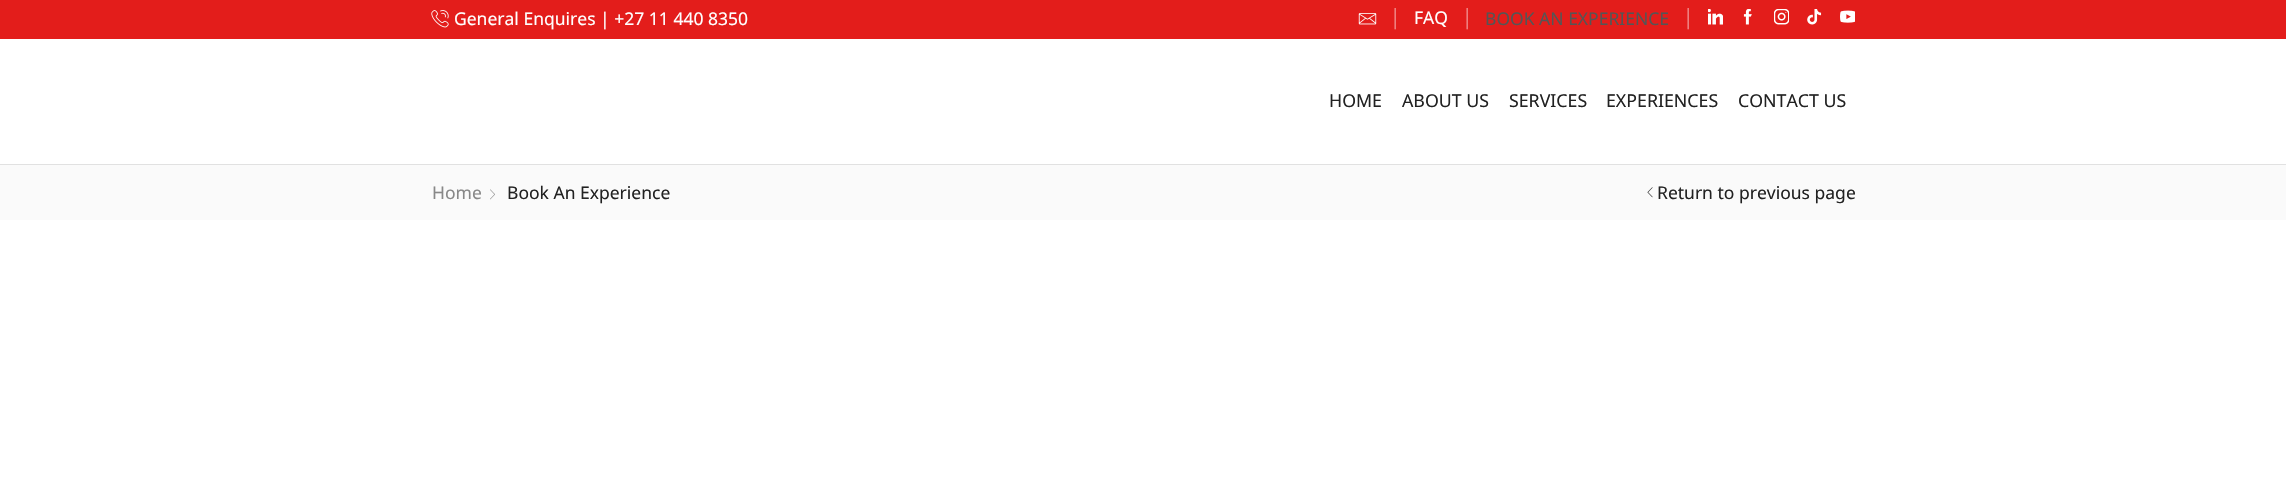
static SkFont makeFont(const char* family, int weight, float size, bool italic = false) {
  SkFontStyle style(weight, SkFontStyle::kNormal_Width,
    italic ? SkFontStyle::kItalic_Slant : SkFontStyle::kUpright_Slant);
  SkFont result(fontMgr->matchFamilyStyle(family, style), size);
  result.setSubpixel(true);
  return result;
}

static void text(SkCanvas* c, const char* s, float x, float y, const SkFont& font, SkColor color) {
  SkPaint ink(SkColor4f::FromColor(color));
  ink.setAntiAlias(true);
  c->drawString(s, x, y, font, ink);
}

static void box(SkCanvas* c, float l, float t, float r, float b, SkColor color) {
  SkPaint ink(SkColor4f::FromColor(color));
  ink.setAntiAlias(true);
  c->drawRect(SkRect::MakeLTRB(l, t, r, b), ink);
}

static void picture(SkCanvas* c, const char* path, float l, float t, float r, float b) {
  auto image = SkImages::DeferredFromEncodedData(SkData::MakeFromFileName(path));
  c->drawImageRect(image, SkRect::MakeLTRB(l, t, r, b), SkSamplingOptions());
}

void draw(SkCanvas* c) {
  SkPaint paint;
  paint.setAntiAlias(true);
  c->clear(0xffffffff);
  box(c, 0, 0, 2286, 39, 0xffe31d1b);
  picture(c, "img_01.png", 431, 10, 449, 28);
  SkFont face1 = makeFont("Noto Sans", 400, 17.5f);
  text(c, "General Enquires | +27 11 440 8350", 454, 25, face1, 0xffffffff);
  picture(c, "img_02.png", 1358, 13, 1377, 25);
  SkFont face2 = makeFont("Liberation Serif", 400, 17.5f);
  text(c, "│", 1389, 24, face2, 0xfff18e8d);
  text(c, "FAQ", 1414, 24, face1, 0xffffffff);
  text(c, "│", 1461, 24, face2, 0xfff18e8d);
  text(c, "BOOK AN EXPERIENCE", 1485, 25, face1, 0xff555555);
  text(c, "│", 1682, 24, face2, 0xfff18e8d);
  picture(c, "img_03.png", 1708, 9, 1723, 25);
  picture(c, "img_04.png", 1743, 9, 1752, 25);
  picture(c, "img_05.png", 1774, 9, 1789, 25);
  picture(c, "img_06.png", 1807, 9, 1822, 25);
  picture(c, "img_07.png", 1840, 10, 1855, 23);
  box(c, 0, 164, 2286, 165, 0xffe1e1e1);
  SkFont face3 = makeFont("Noto Sans", 400, 17.75f);
  text(c, "HOME", 1329, 107, face3, 0xff222222);
  text(c, "ABOUT US", 1402, 107, face3, 0xff222222);
  text(c, "SERVICES", 1509, 107, face3, 0xff222222);
  text(c, "EXPERIENCES", 1606, 107, face3, 0xff222222);
  text(c, "CONTACT US", 1738, 107, face3, 0xff222222);
  box(c, 0, 165, 2286, 220, 0xfffafafa);
  text(c, "Home", 432, 199, face1, 0xff888888);
  picture(c, "img_08.png", 490, 189, 495, 200);
  text(c, "Book An Experience", 507, 199, face1, 0xff222222);
  picture(c, "img_09.png", 1647, 187, 1653, 198);
  text(c, "Return to previous page", 1657, 199, face1, 0xff222222);
}
